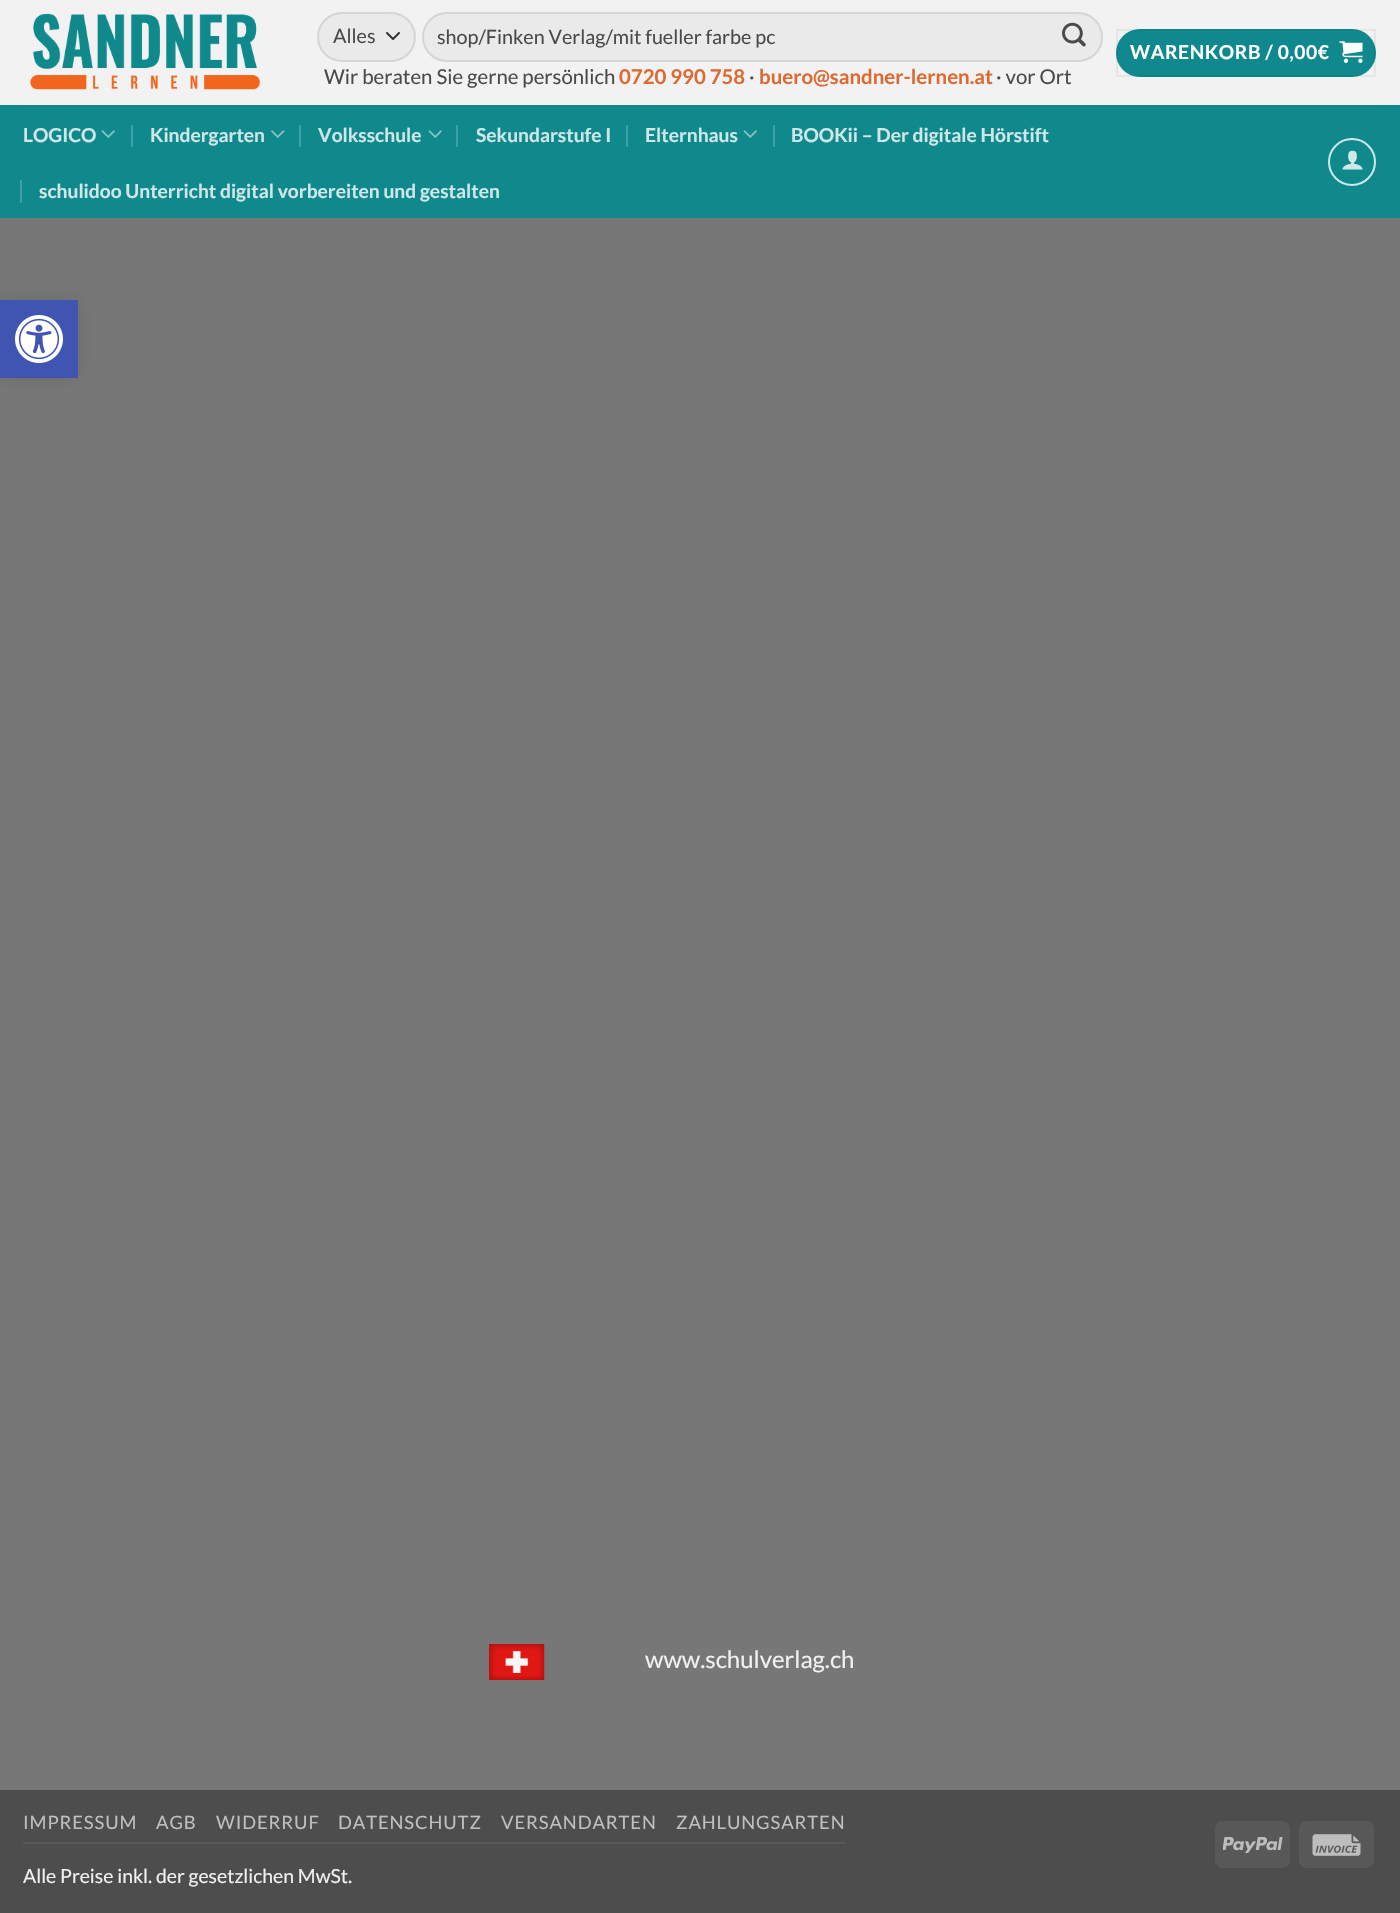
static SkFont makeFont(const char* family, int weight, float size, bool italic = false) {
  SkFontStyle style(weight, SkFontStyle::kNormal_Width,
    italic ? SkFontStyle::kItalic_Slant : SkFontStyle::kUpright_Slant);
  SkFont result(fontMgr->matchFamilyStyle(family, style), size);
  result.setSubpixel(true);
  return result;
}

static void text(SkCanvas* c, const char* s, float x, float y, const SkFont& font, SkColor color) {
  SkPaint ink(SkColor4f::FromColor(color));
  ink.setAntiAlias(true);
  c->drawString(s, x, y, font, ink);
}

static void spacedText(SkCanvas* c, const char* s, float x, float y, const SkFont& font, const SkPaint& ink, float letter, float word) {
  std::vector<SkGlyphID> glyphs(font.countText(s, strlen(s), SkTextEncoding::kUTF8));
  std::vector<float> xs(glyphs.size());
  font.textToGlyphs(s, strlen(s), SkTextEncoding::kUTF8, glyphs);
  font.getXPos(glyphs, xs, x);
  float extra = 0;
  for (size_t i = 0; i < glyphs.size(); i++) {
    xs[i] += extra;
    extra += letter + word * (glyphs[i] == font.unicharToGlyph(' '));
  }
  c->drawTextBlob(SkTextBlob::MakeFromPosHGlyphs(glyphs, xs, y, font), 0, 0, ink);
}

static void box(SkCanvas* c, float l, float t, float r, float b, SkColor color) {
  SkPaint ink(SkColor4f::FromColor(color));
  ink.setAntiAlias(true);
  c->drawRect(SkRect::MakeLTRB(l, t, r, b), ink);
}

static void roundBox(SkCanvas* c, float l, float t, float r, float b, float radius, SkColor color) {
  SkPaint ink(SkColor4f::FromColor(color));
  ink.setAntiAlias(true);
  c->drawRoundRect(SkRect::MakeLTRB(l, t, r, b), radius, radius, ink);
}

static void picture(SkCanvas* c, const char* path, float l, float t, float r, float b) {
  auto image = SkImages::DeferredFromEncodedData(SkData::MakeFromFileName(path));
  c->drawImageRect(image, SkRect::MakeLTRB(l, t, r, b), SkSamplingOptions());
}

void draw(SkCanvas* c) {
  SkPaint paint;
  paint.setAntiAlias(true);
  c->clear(0xff777777);
  box(c, 0, 0, 1400, 105, 0xe6ffffff);
  picture(c, "img_01.png", 30, 13, 260, 90);
  roundBox(c, 317, 12, 416, 62, 25, 0xffeaeaea);
  paint.setStyle(SkPaint::kStroke_Style);
  paint.setStrokeWidth(2);
  paint.setStrokeCap(SkPaint::kRound_Cap);
  paint.setStrokeJoin(SkPaint::kRound_Join);
  paint.setColor(0xff333333);
  c->drawPath(SkPathBuilder().moveTo(387, 33).lineTo(393, 39).lineTo(399, 33).detach(), paint);
  paint.setStrokeCap(SkPaint::kButt_Cap);
  paint.setStrokeJoin(SkPaint::kMiter_Join);
  paint.setColor(0x17000000);
  c->drawRoundRect(SkRect::MakeLTRB(318, 13, 415, 61), 24, 24, paint);
  SkFont face1 = makeFont("Lato", 400, 19.75f);
  text(c, "Alles", 333, 43, face1, 0xff4a4a4a);
  roundBox(c, 422, 12, 1103, 62, 25, 0xffeaeaea);
  c->drawRoundRect(SkRect::MakeLTRB(423, 13, 1102, 61), 24, 24, paint);
  text(c, "shop/Finken Verlag/mit fueller farbe pc", 437, 44, face1, 0xff4a4a4a);
  picture(c, "img_02.png", 1062, 22, 1086, 47);
  SkFont face2 = makeFont("Lato", 400, 20.4f);
  text(c, "Wir beraten Sie gerne persönlich", 324, 84, face2, 0xff4a4a4a);
  SkFont face3 = makeFont("Lato", 700, 20.4f);
  text(c, "0720 990 758", 619, 84, face3, 0xffdc6a32);
  text(c, "·", 749, 84, face2, 0xff4a4a4a);
  text(c, "buero@sandner-lernen.at", 759, 84, face3, 0xffdc6a32);
  text(c, "· vor Ort", 996, 84, face2, 0xff4a4a4a);
  roundBox(c, 1116, 29, 1376, 77, 24, 0xff0f898e);
  paint.setColor(0x0d000000);
  c->drawRect(SkRect::MakeLTRB(1117, 30, 1375, 76), paint);
  SkFont face4 = makeFont("Lato", 700, 19.2f);
  paint.setStyle(SkPaint::kFill_Style);
  paint.setColor(0xffffffff);
  spacedText(c, "WARENKORB / 0,00€", 1130, 59, face4, paint, 0.6f, 0);
  picture(c, "img_03.png", 1339, 41, 1363, 63);
  box(c, 0, 105, 1400, 218, 0xff0f898c);
  box(c, 23, 105, 1379, 107, 0xff158385);
  text(c, "LOGICO", 23, 142, face4, 0xffcfe7e8);
  picture(c, "img_04.png", 101, 130, 115, 138);
  box(c, 131, 125, 133, 147, 0xff3fa1a3);
  text(c, "Kindergarten", 150, 142, face4, 0xffcfe7e8);
  picture(c, "img_05.png", 271, 130, 285, 138);
  box(c, 299, 125, 301, 147, 0xff3fa1a3);
  text(c, "Volksschule", 318, 142, face4, 0xffcfe7e8);
  picture(c, "img_04.png", 428, 130, 442, 138);
  box(c, 456, 125, 458, 147, 0xff3fa1a3);
  text(c, "Sekundarstufe I", 476, 142, face4, 0xffcfe7e8);
  box(c, 626, 125, 628, 147, 0xff3fa1a3);
  text(c, "Elternhaus", 645, 142, face4, 0xffcfe7e8);
  picture(c, "img_04.png", 743, 130, 757, 138);
  box(c, 773, 125, 775, 147, 0xff3fa1a3);
  text(c, "BOOKii – Der digitale Hörstift", 791, 142, face4, 0xffcfe7e8);
  box(c, 20, 180, 22, 203, 0xff3fa1a3);
  text(c, "schulidoo Unterricht digital vorbereiten und gestalten", 39, 198, face4, 0xffcfe7e8);
  paint.setStyle(SkPaint::kStroke_Style);
  paint.setColor(0xffcfe7e8);
  c->drawCircle(1352, 162, 23, paint);
  picture(c, "img_06.png", 1342, 150, 1363, 170);
  picture(c, "img_07.png", 489, 1644, 545, 1680);
  SkFont face5 = makeFont("Lato", 400, 24);
  text(c, "www.schulverlag.ch", 645, 1668, face5, 0xfff1f1f1);
  box(c, 0, 1790, 1400, 1913, 0xff4d4d4d);
  box(c, 23, 1842, 845, 1844, 0xff585858);
  SkFont face6 = makeFont("Lato", 400, 18.4f);
  paint.setStyle(SkPaint::kFill_Style);
  paint.setColor(0xffbfbfbf);
  spacedText(c, "IMPRESSUM", 23, 1829, face6, paint, 0.9f, 0);
  spacedText(c, "AGB", 156, 1829, face6, paint, 0.9f, 0);
  spacedText(c, "WIDERRUF", 216, 1829, face6, paint, 0.9f, 0);
  spacedText(c, "DATENSCHUTZ", 338, 1829, face6, paint, 0.9f, 0);
  spacedText(c, "VERSANDARTEN", 501, 1829, face6, paint, 0.9f, 0);
  spacedText(c, "ZAHLUNGSARTEN", 676, 1829, face6, paint, 0.9f, 0);
  SkFont face7 = makeFont("Lato", 400, 19.4f);
  text(c, "Alle Preise inkl. der gesetzlichen MwSt.", 23, 1883, face7, 0xfff1f1f1);
  roundBox(c, 1215, 1821, 1290, 1868, 8, 0xff585858);
  picture(c, "img_08.png", 1223, 1837, 1283, 1853);
  roundBox(c, 1299, 1821, 1374, 1868, 8, 0xff585858);
  picture(c, "img_09.png", 1312, 1834, 1361, 1856);
  paint.setColor(0x1a000000);
  paint.setMaskFilter(SkMaskFilter::MakeBlur(kNormal_SkBlurStyle, 7.5f));
  c->drawRect(SkRect::MakeLTRB(0, 300, 78, 378), paint);
  paint.setMaskFilter(nullptr);
  box(c, 0, 300, 78, 378, 0xff4054b2);
  picture(c, "img_10.png", 15, 315, 63, 363);
}
